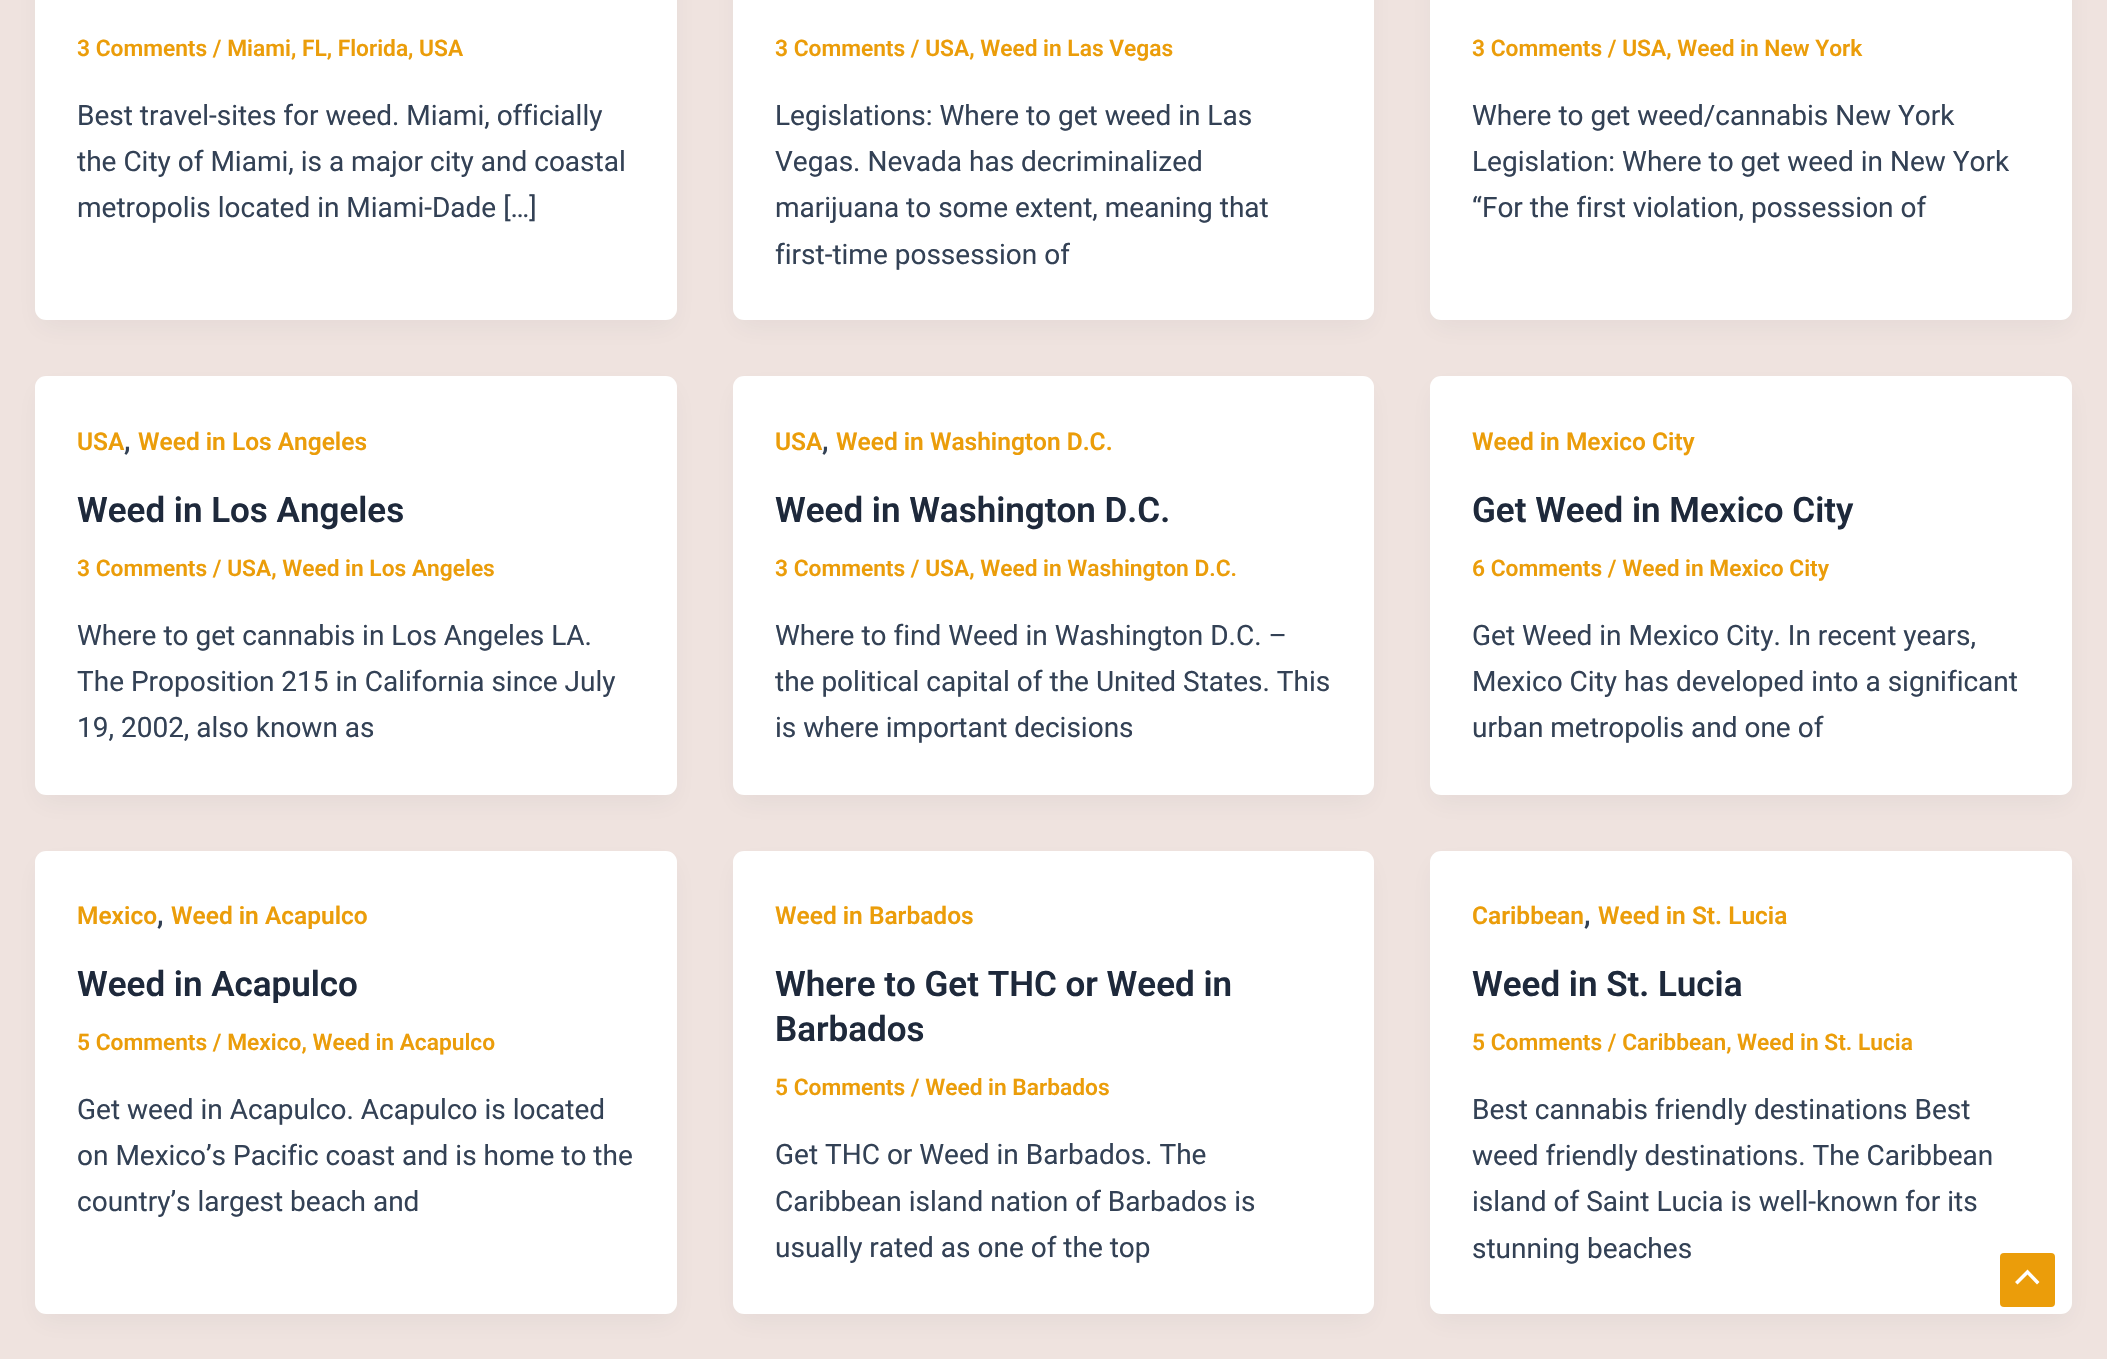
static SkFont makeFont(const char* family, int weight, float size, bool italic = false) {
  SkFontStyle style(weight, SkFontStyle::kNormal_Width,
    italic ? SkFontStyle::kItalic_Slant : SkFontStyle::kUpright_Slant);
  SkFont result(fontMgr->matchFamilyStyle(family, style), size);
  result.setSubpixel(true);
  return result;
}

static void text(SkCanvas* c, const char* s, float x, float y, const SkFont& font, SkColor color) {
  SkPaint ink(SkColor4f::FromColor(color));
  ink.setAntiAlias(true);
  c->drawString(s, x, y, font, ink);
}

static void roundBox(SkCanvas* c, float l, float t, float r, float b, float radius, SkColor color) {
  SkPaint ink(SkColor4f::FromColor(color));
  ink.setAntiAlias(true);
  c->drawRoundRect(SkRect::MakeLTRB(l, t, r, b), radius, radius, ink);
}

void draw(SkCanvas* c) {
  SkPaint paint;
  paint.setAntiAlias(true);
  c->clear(0xffefe3df);
  paint.setColor(0x0d101828);
  paint.setMaskFilter(SkMaskFilter::MakeBlur(kNormal_SkBlurStyle, 13));
  c->drawRoundRect(SkRect::MakeLTRB(39, -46, 674, 327), 7, 7, paint);
  paint.setMaskFilter(nullptr);
  roundBox(c, 35, -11, 677, 320, 11, 0xffffffff);
  SkFont face1 = makeFont("Roboto", 600, 22.75f);
  text(c, "3 Comments / Miami, FL, Florida, USA", 77, 56, face1, 0xffeb9d0a);
  SkFont face2 = makeFont("Roboto", 400, 28);
  text(c, "Best travel-sites for weed. Miami, officially", 77, 125, face2, 0xff334155);
  text(c, "the City of Miami, is a major city and coastal", 77, 171, face2, 0xff334155);
  text(c, "metropolis located in Miami-Dade […]", 77, 217, face2, 0xff334155);
  paint.setMaskFilter(SkMaskFilter::MakeBlur(kNormal_SkBlurStyle, 13));
  c->drawRoundRect(SkRect::MakeLTRB(737, -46, 1370, 327), 7, 7, paint);
  paint.setMaskFilter(nullptr);
  roundBox(c, 733, -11, 1374, 320, 11, 0xffffffff);
  text(c, "3 Comments / USA, Weed in Las Vegas", 775, 56, face1, 0xffeb9d0a);
  text(c, "Legislations: Where to get weed in Las", 775, 125, face2, 0xff334155);
  text(c, "Vegas. Nevada has decriminalized", 775, 171, face2, 0xff334155);
  text(c, "marijuana to some extent, meaning that", 775, 217, face2, 0xff334155);
  text(c, "first-time possession of", 775, 264, face2, 0xff334155);
  paint.setMaskFilter(SkMaskFilter::MakeBlur(kNormal_SkBlurStyle, 13));
  c->drawRoundRect(SkRect::MakeLTRB(1433, -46, 2069, 327), 7, 7, paint);
  paint.setMaskFilter(nullptr);
  roundBox(c, 1430, -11, 2072, 320, 11, 0xffffffff);
  text(c, "3 Comments / USA, Weed in New York", 1472, 56, face1, 0xffeb9d0a);
  text(c, "Where to get weed/cannabis New York", 1472, 125, face2, 0xff334155);
  text(c, "Legislation: Where to get weed in New York", 1472, 171, face2, 0xff334155);
  text(c, "“For the first violation, possession of", 1472, 217, face2, 0xff334155);
  paint.setMaskFilter(SkMaskFilter::MakeBlur(kNormal_SkBlurStyle, 13));
  c->drawRoundRect(SkRect::MakeLTRB(39, 390, 674, 802), 7, 7, paint);
  paint.setMaskFilter(nullptr);
  roundBox(c, 35, 376, 677, 795, 11, 0xffffffff);
  SkFont face3 = makeFont("Roboto", 600, 24.5f);
  text(c, "USA", 77, 450, face3, 0xffeb9d0a);
  SkFont face4 = makeFont("Roboto", 600, 28);
  text(c, ",", 124, 450, face4, 0xff334155);
  text(c, "Weed in Los Angeles", 138, 450, face3, 0xffeb9d0a);
  SkFont face5 = makeFont("Roboto", 600, 35);
  text(c, "Weed in Los Angeles", 77, 522, face5, 0xff1e293b);
  text(c, "3 Comments / USA, Weed in Los Angeles", 77, 576, face1, 0xffeb9d0a);
  text(c, "Where to get cannabis in Los Angeles LA.", 77, 645, face2, 0xff334155);
  text(c, "The Proposition 215 in California since July", 77, 691, face2, 0xff334155);
  text(c, "19, 2002, also known as", 77, 737, face2, 0xff334155);
  paint.setMaskFilter(SkMaskFilter::MakeBlur(kNormal_SkBlurStyle, 13));
  c->drawRoundRect(SkRect::MakeLTRB(737, 390, 1370, 802), 7, 7, paint);
  paint.setMaskFilter(nullptr);
  roundBox(c, 733, 376, 1374, 795, 11, 0xffffffff);
  text(c, "USA", 775, 450, face3, 0xffeb9d0a);
  text(c, ",", 822, 450, face4, 0xff334155);
  text(c, "Weed in Washington D.C.", 836, 450, face3, 0xffeb9d0a);
  text(c, "Weed in Washington D.C.", 775, 522, face5, 0xff1e293b);
  text(c, "3 Comments / USA, Weed in Washington D.C.", 775, 576, face1, 0xffeb9d0a);
  text(c, "Where to find Weed in Washington D.C. –", 775, 645, face2, 0xff334155);
  text(c, "the political capital of the United States. This", 775, 691, face2, 0xff334155);
  text(c, "is where important decisions", 775, 737, face2, 0xff334155);
  paint.setMaskFilter(SkMaskFilter::MakeBlur(kNormal_SkBlurStyle, 13));
  c->drawRoundRect(SkRect::MakeLTRB(1433, 390, 2069, 802), 7, 7, paint);
  paint.setMaskFilter(nullptr);
  roundBox(c, 1430, 376, 2072, 795, 11, 0xffffffff);
  text(c, "Weed in Mexico City", 1472, 450, face3, 0xffeb9d0a);
  text(c, "Get Weed in Mexico City", 1472, 522, face5, 0xff1e293b);
  text(c, "6 Comments / Weed in Mexico City", 1472, 576, face1, 0xffeb9d0a);
  text(c, "Get Weed in Mexico City. In recent years,", 1472, 645, face2, 0xff334155);
  text(c, "Mexico City has developed into a significant", 1472, 691, face2, 0xff334155);
  text(c, "urban metropolis and one of", 1472, 737, face2, 0xff334155);
  paint.setMaskFilter(SkMaskFilter::MakeBlur(kNormal_SkBlurStyle, 13));
  c->drawRoundRect(SkRect::MakeLTRB(39, 865, 674, 1321), 7, 7, paint);
  paint.setMaskFilter(nullptr);
  roundBox(c, 35, 851, 677, 1314, 11, 0xffffffff);
  text(c, "Mexico", 77, 924, face3, 0xffeb9d0a);
  text(c, ",", 157, 924, face4, 0xff334155);
  text(c, "Weed in Acapulco", 171, 924, face3, 0xffeb9d0a);
  text(c, "Weed in Acapulco", 77, 996, face5, 0xff1e293b);
  text(c, "5 Comments / Mexico, Weed in Acapulco", 77, 1050, face1, 0xffeb9d0a);
  text(c, "Get weed in Acapulco. Acapulco is located", 77, 1119, face2, 0xff334155);
  text(c, "on Mexico’s Pacific coast and is home to the", 77, 1165, face2, 0xff334155);
  text(c, "country’s largest beach and", 77, 1211, face2, 0xff334155);
  paint.setMaskFilter(SkMaskFilter::MakeBlur(kNormal_SkBlurStyle, 13));
  c->drawRoundRect(SkRect::MakeLTRB(737, 865, 1370, 1321), 7, 7, paint);
  paint.setMaskFilter(nullptr);
  roundBox(c, 733, 851, 1374, 1314, 11, 0xffffffff);
  text(c, "Weed in Barbados", 775, 924, face3, 0xffeb9d0a);
  text(c, "Where to Get THC or Weed in", 775, 996, face5, 0xff1e293b);
  text(c, "Barbados", 775, 1041, face5, 0xff1e293b);
  text(c, "5 Comments / Weed in Barbados", 775, 1095, face1, 0xffeb9d0a);
  text(c, "Get THC or Weed in Barbados. The", 775, 1164, face2, 0xff334155);
  text(c, "Caribbean island nation of Barbados is", 775, 1211, face2, 0xff334155);
  text(c, "usually rated as one of the top", 775, 1257, face2, 0xff334155);
  paint.setMaskFilter(SkMaskFilter::MakeBlur(kNormal_SkBlurStyle, 13));
  c->drawRoundRect(SkRect::MakeLTRB(1433, 865, 2069, 1321), 7, 7, paint);
  paint.setMaskFilter(nullptr);
  roundBox(c, 1430, 851, 2072, 1314, 11, 0xffffffff);
  text(c, "Caribbean", 1472, 924, face3, 0xffeb9d0a);
  text(c, ",", 1584, 924, face4, 0xff334155);
  text(c, "Weed in St. Lucia", 1598, 924, face3, 0xffeb9d0a);
  text(c, "Weed in St. Lucia", 1472, 996, face5, 0xff1e293b);
  text(c, "5 Comments / Caribbean, Weed in St. Lucia", 1472, 1050, face1, 0xffeb9d0a);
  text(c, "Best cannabis friendly destinations Best", 1472, 1119, face2, 0xff334155);
  text(c, "weed friendly destinations. The Caribbean", 1472, 1165, face2, 0xff334155);
  text(c, "island of Saint Lucia is well-known for its", 1472, 1211, face2, 0xff334155);
  text(c, "stunning beaches", 1472, 1258, face2, 0xff334155);
  roundBox(c, 2000, 1253, 2055, 1307, 4, 0xffeb9d0a);
  paint.setColor(0xffffffff);
  c->drawPath(SkPathBuilder().moveTo(2039.5f, 1282).lineTo(2027.5f, 1269.5f).lineTo(2015, 1282).lineTo(2017.5f, 1284.5f).lineTo(2027.5f, 1274.5f).lineTo(2037, 1284.5f).close().detach(), paint);
}
